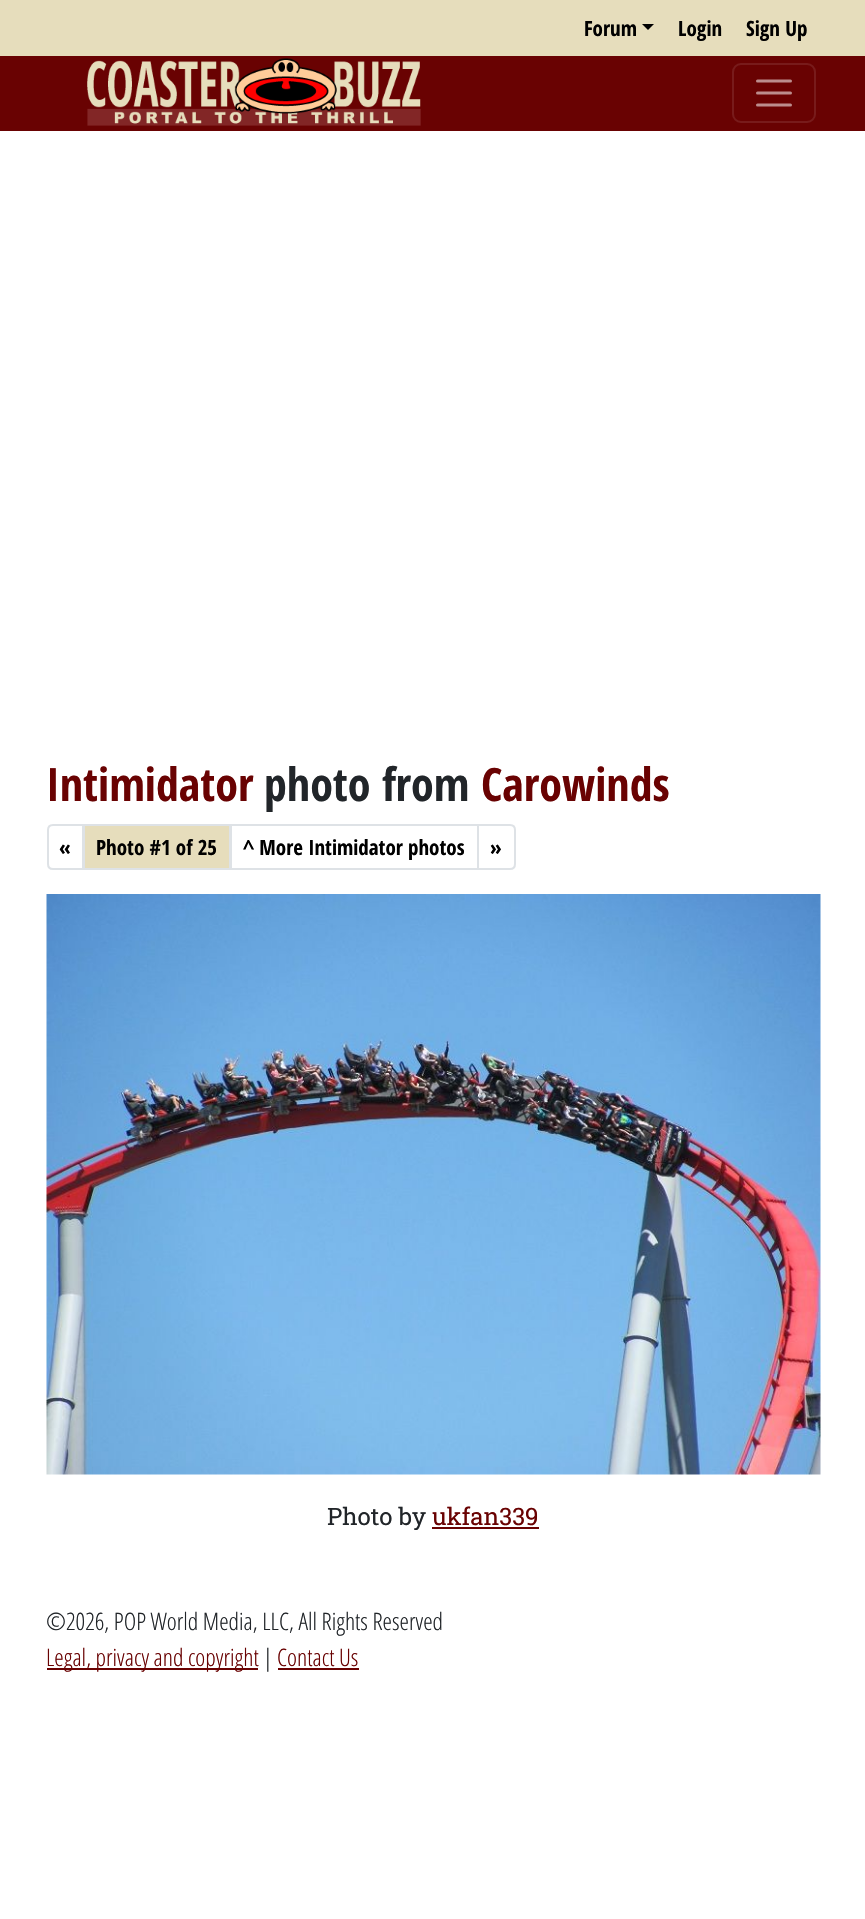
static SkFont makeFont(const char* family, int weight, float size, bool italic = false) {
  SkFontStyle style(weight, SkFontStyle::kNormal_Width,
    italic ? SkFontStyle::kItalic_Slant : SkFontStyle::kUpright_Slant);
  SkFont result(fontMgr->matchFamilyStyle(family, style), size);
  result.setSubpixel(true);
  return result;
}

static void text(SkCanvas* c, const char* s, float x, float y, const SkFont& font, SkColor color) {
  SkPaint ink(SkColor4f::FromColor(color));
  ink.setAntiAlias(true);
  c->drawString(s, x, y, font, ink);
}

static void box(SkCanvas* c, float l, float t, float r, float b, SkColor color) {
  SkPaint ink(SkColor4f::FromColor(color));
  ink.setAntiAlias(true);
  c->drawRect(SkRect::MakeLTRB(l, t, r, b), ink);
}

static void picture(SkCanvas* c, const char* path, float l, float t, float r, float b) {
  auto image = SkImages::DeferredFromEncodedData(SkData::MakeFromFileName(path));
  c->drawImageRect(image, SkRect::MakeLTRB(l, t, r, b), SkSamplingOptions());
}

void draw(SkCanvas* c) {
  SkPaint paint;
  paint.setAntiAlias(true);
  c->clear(0xffffffff);
  box(c, 0, 0, 865, 56, 0xffe6ddbc);
  SkFont face1 = makeFont("Open Sans Condensed", 700, 21);
  text(c, "Forum", 584, 36, face1, 0xff000000);
  paint.setColor(0xff000000);
  c->drawPath(SkPathBuilder().moveTo(642, 24).lineTo(654, 24).lineTo(648, 30).close().detach(), paint);
  text(c, "Login", 678, 36, face1, 0xff000000);
  text(c, "Sign Up", 746, 36, face1, 0xff000000);
  box(c, 0, 56, 865, 131, 0xff690202);
  picture(c, "img_01.png", 87, 58, 421, 126);
  paint.setStyle(SkPaint::kStroke_Style);
  paint.setStrokeWidth(2);
  paint.setColor(0xff781b1b);
  c->drawRoundRect(SkRect::MakeLTRB(733, 64, 815, 122), 8, 8, paint);
  paint.setStrokeWidth(3);
  paint.setStrokeCap(SkPaint::kRound_Cap);
  paint.setColor(0xffbc8d8d);
  c->drawPath(SkPathBuilder().moveTo(757.5f, 81).lineTo(790.5f, 81).moveTo(757.5f, 93).lineTo(790.5f, 93).moveTo(757.5f, 105).lineTo(790.5f, 105).detach(), paint);
  SkFont face2 = makeFont("Open Sans Condensed", 700, 46);
  text(c, "Intimidator", 46, 801, face2, 0xff690202);
  text(c, "photo from", 264, 801, face2, 0xff212529);
  text(c, "Carowinds", 481, 801, face2, 0xff690202);
  paint.setStrokeWidth(2);
  paint.setStrokeCap(SkPaint::kButt_Cap);
  paint.setColor(0xffdee2e6);
  c->drawPath(SkPathBuilder().moveTo(53, 825).lineTo(83, 825).lineTo(83, 869).lineTo(53, 869).cubicTo(50, 869, 48, 867, 48, 864).lineTo(48, 830).cubicTo(48, 827, 50, 825, 53, 825).close().detach(), paint);
  text(c, "«", 59, 855, face1, 0xff000000);
  c->drawRect(SkRect::MakeLTRB(231, 825, 478, 869), paint);
  paint.setStyle(SkPaint::kFill_Style);
  paint.setColor(0xffe6ddbc);
  c->drawRect(SkRect::MakeLTRB(84, 825, 230, 869), paint);
  paint.setStyle(SkPaint::kStroke_Style);
  paint.setColor(0xffdee2e6);
  c->drawRect(SkRect::MakeLTRB(84, 825, 230, 869), paint);
  text(c, "Photo #1 of 25", 96, 855, face1, 0xff000000);
  text(c, "^ More Intimidator photos", 243, 855, face1, 0xff000000);
  paint.setStyle(SkPaint::kFill_Style);
  paint.setColor(0xffffffff);
  c->drawPath(SkPathBuilder().moveTo(478, 825).lineTo(510, 825).cubicTo(513, 825, 515, 827, 515, 830).lineTo(515, 864).cubicTo(515, 867, 513, 869, 510, 869).lineTo(478, 869).close().detach(), paint);
  paint.setStyle(SkPaint::kStroke_Style);
  paint.setColor(0xffdee2e6);
  c->drawPath(SkPathBuilder().moveTo(478, 825).lineTo(510, 825).cubicTo(513, 825, 515, 827, 515, 830).lineTo(515, 864).cubicTo(515, 867, 513, 869, 510, 869).lineTo(478, 869).close().detach(), paint);
  text(c, "»", 490, 855, face1, 0xff000000);
  picture(c, "img_02.png", 46, 894, 821, 1475);
  SkFont face3 = makeFont("Roboto Slab", 400, 24);
  text(c, "Photo by", 327, 1525, face3, 0xff212529);
  text(c, "ukfan339", 432, 1525, face3, 0xff690202);
  box(c, 432, 1527, 539, 1529, 0xff690202);
  SkFont face4 = makeFont("Open Sans Condensed", 300, 24);
  text(c, "©2026, POP World Media, LLC, All Rights Reserved", 46, 1630, face4, 0xff212529);
  box(c, 47, 1668, 258, 1670, 0xff690202);
  text(c, "Legal, privacy and copyright", 46, 1666, face4, 0xff690202);
  text(c, "|", 263, 1666, face4, 0xff212529);
  text(c, "Contact Us", 277, 1666, face4, 0xff690202);
  box(c, 278, 1668, 359, 1670, 0xff690202);
}
